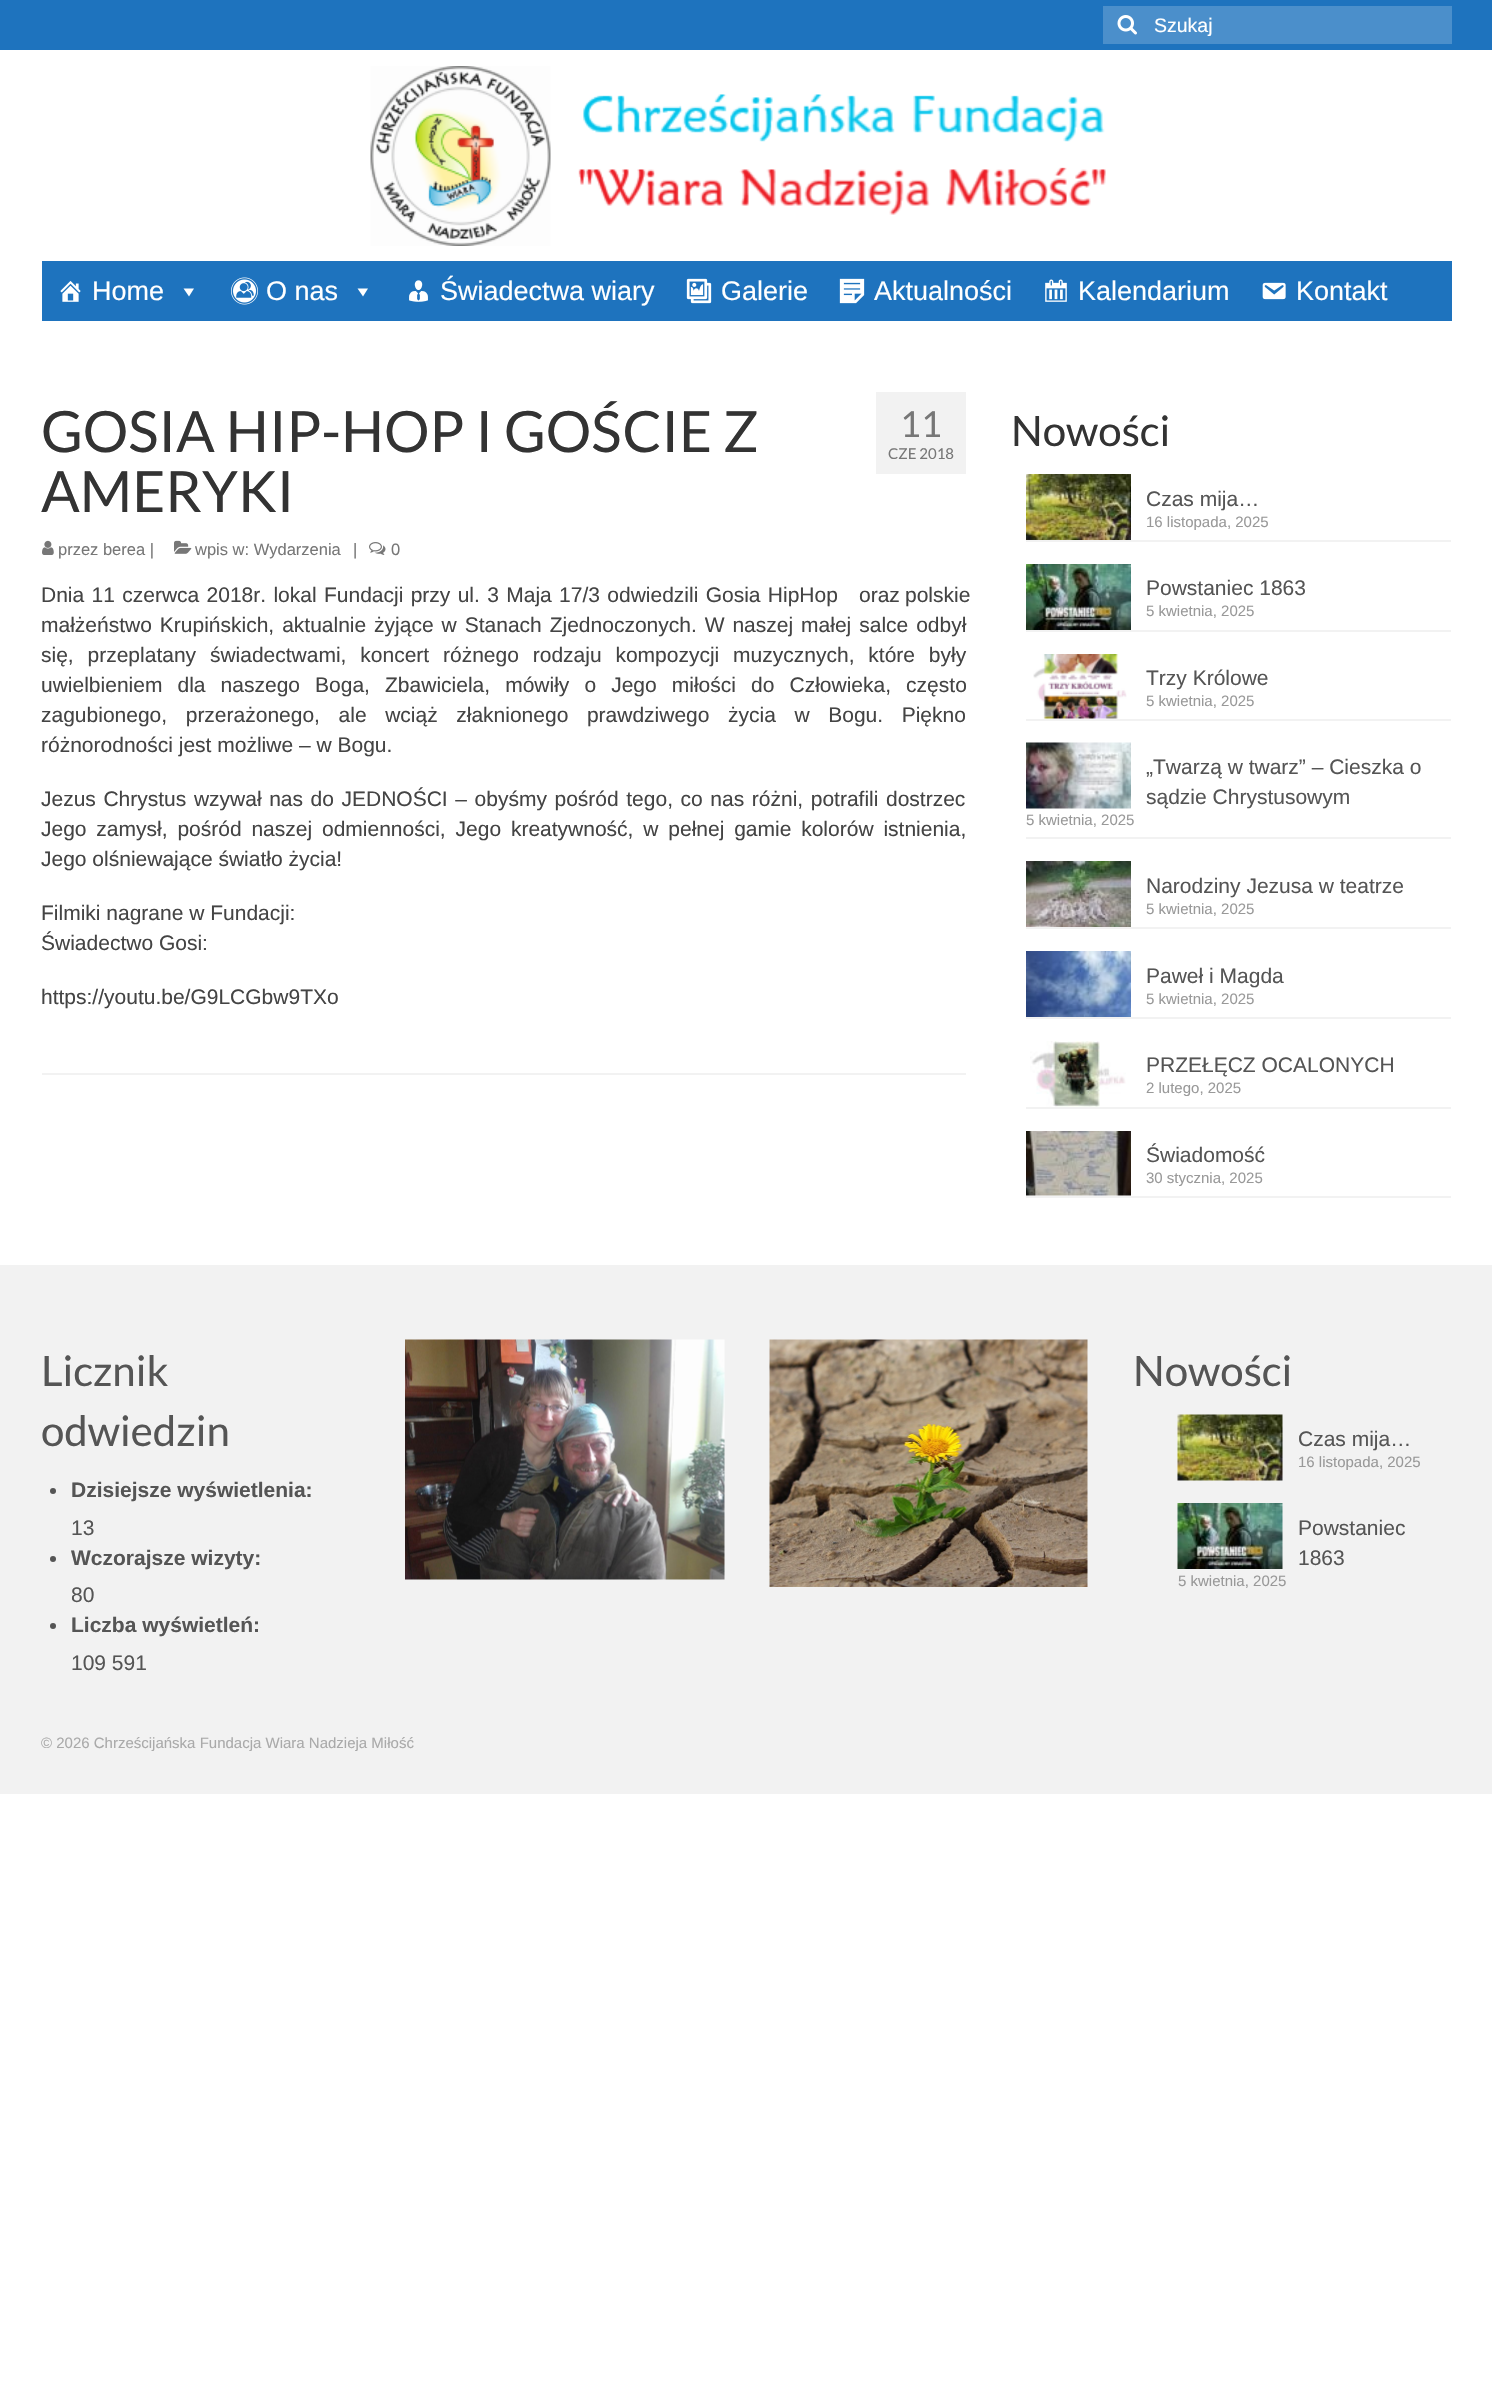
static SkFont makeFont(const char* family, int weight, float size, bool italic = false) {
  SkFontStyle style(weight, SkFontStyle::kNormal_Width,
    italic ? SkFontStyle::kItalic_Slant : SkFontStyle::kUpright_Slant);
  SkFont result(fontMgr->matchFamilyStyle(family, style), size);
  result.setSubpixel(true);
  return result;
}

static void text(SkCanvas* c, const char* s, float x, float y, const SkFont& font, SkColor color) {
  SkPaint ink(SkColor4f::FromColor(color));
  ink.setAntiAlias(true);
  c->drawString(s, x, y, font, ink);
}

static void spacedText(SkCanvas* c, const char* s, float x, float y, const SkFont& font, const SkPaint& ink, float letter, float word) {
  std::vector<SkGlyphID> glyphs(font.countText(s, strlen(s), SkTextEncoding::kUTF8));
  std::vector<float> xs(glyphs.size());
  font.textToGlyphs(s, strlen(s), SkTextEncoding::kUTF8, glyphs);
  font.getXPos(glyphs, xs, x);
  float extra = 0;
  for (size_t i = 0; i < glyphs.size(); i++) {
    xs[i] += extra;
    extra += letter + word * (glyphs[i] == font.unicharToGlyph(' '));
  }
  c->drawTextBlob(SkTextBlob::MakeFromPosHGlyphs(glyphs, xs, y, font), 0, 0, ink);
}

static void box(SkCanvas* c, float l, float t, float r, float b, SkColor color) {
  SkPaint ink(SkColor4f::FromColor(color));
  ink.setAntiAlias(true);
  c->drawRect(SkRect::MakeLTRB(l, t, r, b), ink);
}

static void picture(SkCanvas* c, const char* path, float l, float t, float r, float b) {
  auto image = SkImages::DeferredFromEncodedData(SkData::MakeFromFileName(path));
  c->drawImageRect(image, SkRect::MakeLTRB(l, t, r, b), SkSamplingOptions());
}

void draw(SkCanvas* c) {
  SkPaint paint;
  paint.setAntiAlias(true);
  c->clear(0xffffffff);
  box(c, 0, 0, 1492, 50, 0xff1e73be);
  box(c, 1103, 6, 1452, 44, 0xff4b8fcb);
  picture(c, "img_01.png", 1117, 15, 1137, 35);
  SkFont face1 = makeFont("Liberation Sans", 400, 19.5f);
  text(c, "Szukaj", 1154, 32, face1, 0xffffffff);
  picture(c, "img_02.png", 370, 66, 1106, 246);
  box(c, 42, 261, 1452, 321, 0xff1e73be);
  picture(c, "img_03.png", 60, 281, 81, 302);
  SkFont face2 = makeFont("Liberation Sans", 400, 27);
  text(c, "Home", 92, 300, face2, 0xffffffff);
  paint.setColor(0xffffffff);
  c->drawPath(SkPathBuilder().moveTo(194, 288.5f).lineTo(189, 296.5f).lineTo(183.5f, 288.5f).close().detach(), paint);
  picture(c, "img_04.png", 231, 277, 258, 305);
  text(c, "O nas", 266, 300, face2, 0xffffffff);
  c->drawPath(SkPathBuilder().moveTo(368, 288.5f).lineTo(363, 296.5f).lineTo(357.5f, 288.5f).close().detach(), paint);
  picture(c, "img_05.png", 409, 280, 428, 302);
  text(c, "Świadectwa wiary", 440, 300, face2, 0xffffffff);
  picture(c, "img_06.png", 686, 278, 712, 304);
  text(c, "Galerie", 721, 300, face2, 0xffffffff);
  picture(c, "img_07.png", 839, 278, 865, 304);
  text(c, "Aktualności", 874, 300, face2, 0xffffffff);
  picture(c, "img_08.png", 1045, 279, 1067, 302);
  text(c, "Kalendarium", 1078, 300, face2, 0xffffffff);
  picture(c, "img_09.png", 1262, 282, 1286, 300);
  text(c, "Kontakt", 1296, 300, face2, 0xffffffff);
  SkFont face3 = makeFont("Lato", 400, 57);
  text(c, "GOSIA HIP-HOP I GOŚCIE Z", 41, 452, face3, 0xff333333);
  text(c, "AMERYKI", 41, 512, face3, 0xff333333);
  picture(c, "img_10.png", 42, 540, 54, 555);
  SkFont face4 = makeFont("Liberation Sans", 400, 16.5f);
  text(c, "przez berea |", 58, 555, face4, 0xff777777);
  picture(c, "img_11.png", 174, 540, 192, 554);
  text(c, "wpis w: Wydarzenia", 195, 555, face4, 0xff777777);
  text(c, "|", 353, 555, face4, 0xff777777);
  picture(c, "img_12.png", 369, 542, 386, 555);
  text(c, "0", 391, 555, face4, 0xff777777);
  box(c, 876, 392, 966, 474, 0xfff2f2f2);
  SkFont face5 = makeFont("Lato", 400, 36);
  text(c, "11", 900, 437, face5, 0xff777777);
  SkFont face6 = makeFont("Lato", 400, 15);
  text(c, "CZE 2018", 888, 459, face6, 0xff777777);
  SkFont face7 = makeFont("Liberation Sans", 400, 21);
  paint.setColor(0xff444444);
  spacedText(c, "Dnia 11 czerwca 2018r. lokal Fundacji przy ul. 3 Maja 17/3 odwiedzili Gosia Hip‑Hop", 41, 602, face7, paint, 0, 1.5f);
  spacedText(c, "oraz", 859, 602, face7, paint, 0, 1.5f);
  spacedText(c, "polskie", 905, 602, face7, paint, 0, 1.5f);
  spacedText(c, "małżeństwo Krupińskich, aktualnie żyjące w Stanach Zjednoczonych. W naszej małej salce odbył", 41, 632, face7, paint, 0, 2.1f);
  spacedText(c, "się, przeplatany świadectwami, koncert różnego rodzaju kompozycji muzycznych, które były", 41, 662, face7, paint, 0, 8);
  spacedText(c, "uwielbieniem dla naszego Boga, Zbawiciela, mówiły o Jego miłości do Człowieka, często", 41, 692, face7, paint, 0, 9.25f);
  spacedText(c, "zagubionego, przerażonego, ale wciąż złaknionego prawdziwego życia w Bogu. Piękno", 41, 722, face7, paint, 0, 12.75f);
  text(c, "różnorodności jest możliwe – w Bogu.", 41, 752, face7, 0xff444444);
  spacedText(c, "Jezus Chrystus wzywał nas do JEDNOŚCI – obyśmy pośród tego, co nas różni, potrafili dostrzec", 41, 806, face7, paint, 0, 1.75f);
  spacedText(c, "Jego zamysł, pośród naszej odmienności, Jego kreatywność, w pełnej gamie kolorów istnienia,", 41, 836, face7, paint, 0, 4);
  text(c, "Jego olśniewające światło życia!", 41, 866, face7, 0xff444444);
  text(c, "Filmiki nagrane w Fundacji:", 41, 920, face7, 0xff444444);
  text(c, "Świadectwo Gosi:", 41, 950, face7, 0xff444444);
  text(c, "https://youtu.be/G9LCGbw9TXo", 41, 1004, face7, 0xff444444);
  box(c, 42, 1073, 966, 1075, 0xfff2f2f2);
  SkFont face8 = makeFont("Lato", 400, 42);
  text(c, "Nowości", 1011, 446, face8, 0xff333333);
  box(c, 1026, 540, 1451, 542, 0xfff2f2f2);
  picture(c, "img_13.png", 1026, 474, 1131, 540);
  text(c, "Czas mija…", 1146, 506, face7, 0xff555555);
  SkFont face9 = makeFont("Liberation Sans", 400, 15);
  text(c, "16 listopada, 2025", 1146, 527, face9, 0xff999999);
  box(c, 1026, 630, 1451, 632, 0xfff2f2f2);
  picture(c, "img_14.png", 1026, 564, 1131, 630);
  text(c, "Powstaniec 1863", 1146, 595, face7, 0xff555555);
  text(c, "5 kwietnia, 2025", 1146, 616, face9, 0xff999999);
  box(c, 1026, 719, 1451, 721, 0xfff2f2f2);
  picture(c, "img_15.png", 1033, 654, 1127, 719);
  text(c, "Trzy Królowe", 1146, 685, face7, 0xff555555);
  text(c, "5 kwietnia, 2025", 1146, 706, face9, 0xff999999);
  box(c, 1026, 837, 1451, 839, 0xfff2f2f2);
  picture(c, "img_16.png", 1026, 742, 1131, 809);
  text(c, "„Twarzą w twarz” – Cieszka o", 1146, 774, face7, 0xff555555);
  text(c, "sądzie Chrystusowym", 1146, 804, face7, 0xff555555);
  text(c, "5 kwietnia, 2025", 1026, 825, face9, 0xff999999);
  box(c, 1026, 927, 1451, 929, 0xfff2f2f2);
  picture(c, "img_17.png", 1026, 861, 1131, 927);
  text(c, "Narodziny Jezusa w teatrze", 1146, 893, face7, 0xff555555);
  text(c, "5 kwietnia, 2025", 1146, 914, face9, 0xff999999);
  box(c, 1026, 1017, 1451, 1019, 0xfff2f2f2);
  picture(c, "img_18.png", 1026, 951, 1131, 1017);
  text(c, "Paweł i Magda", 1146, 983, face7, 0xff555555);
  text(c, "5 kwietnia, 2025", 1146, 1004, face9, 0xff999999);
  box(c, 1026, 1107, 1451, 1109, 0xfff2f2f2);
  picture(c, "img_19.png", 1030, 1041, 1126, 1107);
  text(c, "PRZEŁĘCZ OCALONYCH", 1146, 1072, face7, 0xff555555);
  text(c, "2 lutego, 2025", 1146, 1093, face9, 0xff999999);
  box(c, 1026, 1196, 1451, 1198, 0xfff2f2f2);
  picture(c, "img_20.png", 1026, 1131, 1131, 1196);
  text(c, "Świadomość", 1146, 1162, face7, 0xff555555);
  text(c, "30 stycznia, 2025", 1146, 1183, face9, 0xff999999);
  box(c, 0, 1265, 1492, 1794, 0xfff2f2f2);
  text(c, "Licznik", 41, 1386, face8, 0xff555555);
  text(c, "odwiedzin", 41, 1446, face8, 0xff555555);
  paint.setColor(0xff555555);
  c->drawCircle(53, 1491, 3, paint);
  SkFont face10 = makeFont("Liberation Sans", 700, 21);
  text(c, "Dzisiejsze wyświetlenia:", 71, 1497, face10, 0xff555555);
  text(c, "13", 71, 1535, face7, 0xff555555);
  c->drawCircle(53, 1559, 3, paint);
  text(c, "Wczorajsze wizyty:", 71, 1565, face10, 0xff555555);
  text(c, "80", 71, 1602, face7, 0xff555555);
  c->drawCircle(53, 1626, 3, paint);
  text(c, "Liczba wyświetleń:", 71, 1632, face10, 0xff555555);
  text(c, "109 591", 71, 1670, face7, 0xff555555);
  picture(c, "img_21.png", 405, 1339, 725, 1580);
  picture(c, "img_22.png", 769, 1339, 1088, 1587);
  text(c, "Nowości", 1133, 1386, face8, 0xff555555);
  picture(c, "img_23.png", 1177, 1414, 1283, 1481);
  text(c, "Czas mija…", 1298, 1446, face7, 0xff555555);
  text(c, "16 listopada, 2025", 1298, 1467, face9, 0xff999999);
  picture(c, "img_24.png", 1177, 1503, 1283, 1569);
  text(c, "Powstaniec", 1298, 1535, face7, 0xff555555);
  text(c, "1863", 1298, 1565, face7, 0xff555555);
  text(c, "5 kwietnia, 2025", 1178, 1586, face9, 0xff999999);
  text(c, "© 2026 Chrześcijańska Fundacja Wiara Nadzieja Miłość", 41, 1748, face9, 0xffaaaaaa);
}
